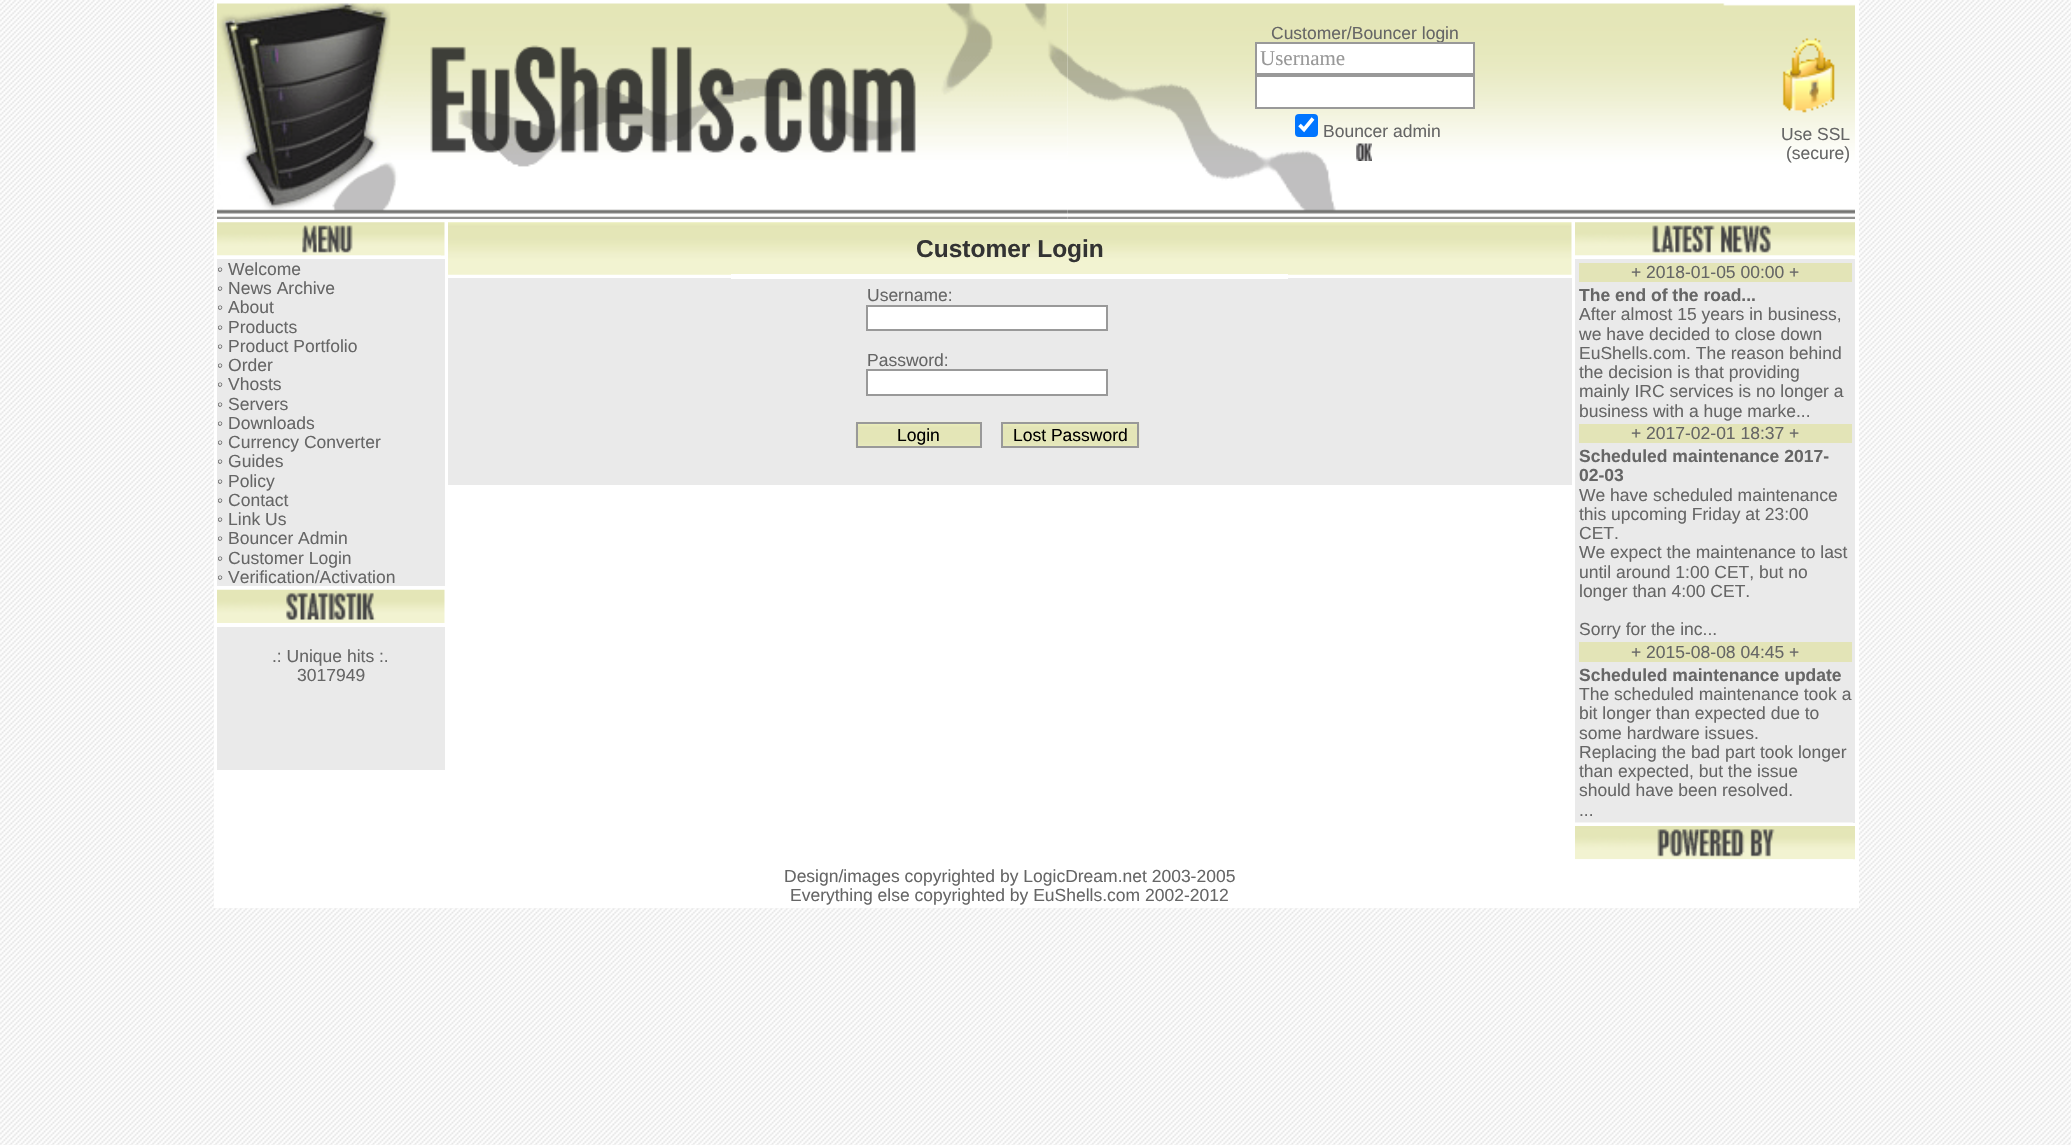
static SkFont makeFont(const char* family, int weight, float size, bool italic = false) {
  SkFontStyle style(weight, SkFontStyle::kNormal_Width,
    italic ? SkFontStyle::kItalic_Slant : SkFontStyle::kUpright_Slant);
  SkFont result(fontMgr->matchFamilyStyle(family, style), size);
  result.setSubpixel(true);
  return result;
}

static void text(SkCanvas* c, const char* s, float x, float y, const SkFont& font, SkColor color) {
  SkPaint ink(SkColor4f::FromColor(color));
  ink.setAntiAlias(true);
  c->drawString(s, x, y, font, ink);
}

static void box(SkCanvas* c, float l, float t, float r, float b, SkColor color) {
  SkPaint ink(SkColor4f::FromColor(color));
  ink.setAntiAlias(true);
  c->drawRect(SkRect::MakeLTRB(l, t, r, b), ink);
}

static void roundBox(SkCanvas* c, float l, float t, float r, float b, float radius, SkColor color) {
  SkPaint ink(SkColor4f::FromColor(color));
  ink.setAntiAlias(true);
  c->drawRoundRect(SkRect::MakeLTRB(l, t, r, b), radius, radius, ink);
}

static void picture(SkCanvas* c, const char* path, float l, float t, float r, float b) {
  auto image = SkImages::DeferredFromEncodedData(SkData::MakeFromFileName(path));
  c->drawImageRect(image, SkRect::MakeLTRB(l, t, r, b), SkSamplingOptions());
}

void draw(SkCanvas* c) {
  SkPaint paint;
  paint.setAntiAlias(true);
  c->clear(0xffffffff);
  picture(c, "img_01.png", 0, 0, 2071, 1145);
  box(c, 214, 0, 1859, 908, 0xffffffff);
  picture(c, "img_03.png", 1067, 3, 1855, 219);
  picture(c, "img_02.png", 217, 3, 1068, 219);
  SkFont face1 = makeFont("Liberation Sans", 400, 17.5f);
  text(c, "Customer/Bouncer login", 1271, 39, face1, 0xff666666);
  paint.setColor(0xffffffff);
  c->drawRect(SkRect::MakeLTRB(1256, 43, 1474, 74), paint);
  paint.setStyle(SkPaint::kStroke_Style);
  paint.setStrokeWidth(2);
  paint.setColor(0xff999999);
  c->drawRect(SkRect::MakeLTRB(1256, 43, 1474, 74), paint);
  SkFont face2 = makeFont("Liberation Serif", 400, 21);
  text(c, "Username", 1260, 65, face2, 0xff999999);
  paint.setStyle(SkPaint::kFill_Style);
  paint.setColor(0xffffffff);
  c->drawRect(SkRect::MakeLTRB(1256, 76, 1474, 108), paint);
  paint.setStyle(SkPaint::kStroke_Style);
  paint.setColor(0xff999999);
  c->drawRect(SkRect::MakeLTRB(1256, 76, 1474, 108), paint);
  roundBox(c, 1295, 114, 1318, 137, 4, 0xff0075ff);
  paint.setStrokeWidth(3.6f);
  paint.setColor(0xffffffff);
  c->drawPath(SkPathBuilder().moveTo(1299.5f, 125).lineTo(1304, 129.5f).lineTo(1313, 118.5f).detach(), paint);
  text(c, "Bouncer admin", 1323, 137, face1, 0xff666666);
  picture(c, "img_04.png", 1356, 143, 1372, 161);
  picture(c, "img_05.png", 1782, 38, 1835, 113);
  text(c, "Use SSL", 1781, 140, face1, 0xff666666);
  text(c, "(secure)", 1786, 159, face1, 0xff666666);
  picture(c, "img_06.png", 217, 222, 445, 256);
  box(c, 217, 255, 441, 256, 0xfffbfcf3);
  box(c, 217, 259, 445, 586, 0xffeaeaea);
  text(c, "◦ Welcome", 217, 275, face1, 0xff666666);
  text(c, "◦ News Archive", 217, 294, face1, 0xff666666);
  text(c, "◦ About", 217, 313, face1, 0xff666666);
  text(c, "◦ Products", 217, 333, face1, 0xff666666);
  text(c, "◦ Product Portfolio", 217, 352, face1, 0xff666666);
  text(c, "◦ Order", 217, 371, face1, 0xff666666);
  text(c, "◦ Vhosts", 217, 390, face1, 0xff666666);
  text(c, "◦ Servers", 217, 410, face1, 0xff666666);
  text(c, "◦ Downloads", 217, 429, face1, 0xff666666);
  text(c, "◦ Currency Converter", 217, 448, face1, 0xff666666);
  text(c, "◦ Guides", 217, 467, face1, 0xff666666);
  text(c, "◦ Policy", 217, 487, face1, 0xff666666);
  text(c, "◦ Contact", 217, 506, face1, 0xff666666);
  text(c, "◦ Link Us", 217, 525, face1, 0xff666666);
  text(c, "◦ Bouncer Admin", 217, 544, face1, 0xff666666);
  text(c, "◦ Customer Login", 217, 564, face1, 0xff666666);
  text(c, "◦ Verification/Activation", 217, 583, face1, 0xff666666);
  picture(c, "img_07.png", 217, 589, 445, 623);
  box(c, 217, 627, 445, 770, 0xffeaeaea);
  text(c, ".: Unique hits :.", 272, 662, face1, 0xff666666);
  text(c, "3017949", 297, 681, face1, 0xff666666);
  picture(c, "img_08.png", 448, 222, 1572, 275);
  SkFont face3 = makeFont("Liberation Sans", 700, 24.5f);
  text(c, "Customer Login", 916, 257, face3, 0xff333333);
  box(c, 448, 278, 1572, 485, 0xffeaeaea);
  box(c, 731, 274, 1288, 279, 0xffffffff);
  text(c, "Username:", 867, 301, face1, 0xff666666);
  paint.setStyle(SkPaint::kFill_Style);
  c->drawRect(SkRect::MakeLTRB(867, 306, 1107, 330), paint);
  paint.setStyle(SkPaint::kStroke_Style);
  paint.setStrokeWidth(2);
  paint.setColor(0xff999999);
  c->drawRect(SkRect::MakeLTRB(867, 306, 1107, 330), paint);
  text(c, "Password:", 867, 366, face1, 0xff666666);
  paint.setStyle(SkPaint::kFill_Style);
  paint.setColor(0xffffffff);
  c->drawRect(SkRect::MakeLTRB(867, 370, 1107, 395), paint);
  paint.setStyle(SkPaint::kStroke_Style);
  paint.setColor(0xff999999);
  c->drawRect(SkRect::MakeLTRB(867, 370, 1107, 395), paint);
  picture(c, "img_09.png", 855, 421, 982, 448);
  c->drawRect(SkRect::MakeLTRB(857, 423, 981, 447), paint);
  text(c, "Login", 897, 441, face1, 0xff000000);
  picture(c, "img_10.png", 1001, 421, 1140, 448);
  c->drawRect(SkRect::MakeLTRB(1002, 423, 1138, 447), paint);
  text(c, "Lost Password", 1013, 441, face1, 0xff000000);
  picture(c, "img_11.png", 1575, 222, 1855, 256);
  box(c, 1575, 255, 1853, 256, 0xfffbfcf3);
  box(c, 1575, 259, 1855, 823, 0xffeaeaea);
  box(c, 1579, 263, 1852, 282, 0xffe3e4b7);
  text(c, "+ 2018-01-05 00:00 +", 1631, 278, face1, 0xff666666);
  SkFont face4 = makeFont("Liberation Sans", 700, 17.5f);
  text(c, "The end of the road...", 1579, 301, face4, 0xff666666);
  text(c, "After almost 15 years in business,", 1579, 320, face1, 0xff666666);
  text(c, "we have decided to close down", 1579, 340, face1, 0xff666666);
  text(c, "EuShells.com. The reason behind", 1579, 359, face1, 0xff666666);
  text(c, "the decision is that providing", 1579, 378, face1, 0xff666666);
  text(c, "mainly IRC services is no longer a", 1579, 397, face1, 0xff666666);
  text(c, "business with a huge marke...", 1579, 417, face1, 0xff666666);
  box(c, 1579, 424, 1852, 443, 0xffe3e4b7);
  text(c, "+ 2017-02-01 18:37 +", 1631, 439, face1, 0xff666666);
  text(c, "Scheduled maintenance 2017-", 1579, 462, face4, 0xff666666);
  text(c, "02-03", 1579, 481, face4, 0xff666666);
  text(c, "We have scheduled maintenance", 1579, 501, face1, 0xff666666);
  text(c, "this upcoming Friday at 23:00", 1579, 520, face1, 0xff666666);
  text(c, "CET.", 1579, 539, face1, 0xff666666);
  text(c, "We expect the maintenance to last", 1579, 558, face1, 0xff666666);
  text(c, "until around 1:00 CET, but no", 1579, 578, face1, 0xff666666);
  text(c, "longer than 4:00 CET.", 1579, 597, face1, 0xff666666);
  text(c, "Sorry for the inc...", 1579, 635, face1, 0xff666666);
  box(c, 1579, 642, 1852, 662, 0xffe3e4b7);
  text(c, "+ 2015-08-08 04:45 +", 1631, 658, face1, 0xff666666);
  text(c, "Scheduled maintenance update", 1579, 681, face4, 0xff666666);
  text(c, "The scheduled maintenance took a", 1579, 700, face1, 0xff666666);
  text(c, "bit longer than expected due to", 1579, 719, face1, 0xff666666);
  text(c, "some hardware issues.", 1579, 739, face1, 0xff666666);
  text(c, "Replacing the bad part took longer", 1579, 758, face1, 0xff666666);
  text(c, "than expected, but the issue", 1579, 777, face1, 0xff666666);
  text(c, "should have been resolved.", 1579, 796, face1, 0xff666666);
  text(c, "...", 1579, 816, face1, 0xff666666);
  box(c, 1575, 822, 1853, 823, 0xfff5f5f5);
  picture(c, "img_12.png", 1575, 826, 1855, 860);
  box(c, 1575, 859, 1853, 860, 0xfffefefc);
  text(c, "Design/images copyrighted by LogicDream.net 2003-2005", 784, 882, face1, 0xff666666);
  text(c, "Everything else copyrighted by EuShells.com 2002-2012", 790, 901, face1, 0xff666666);
}
